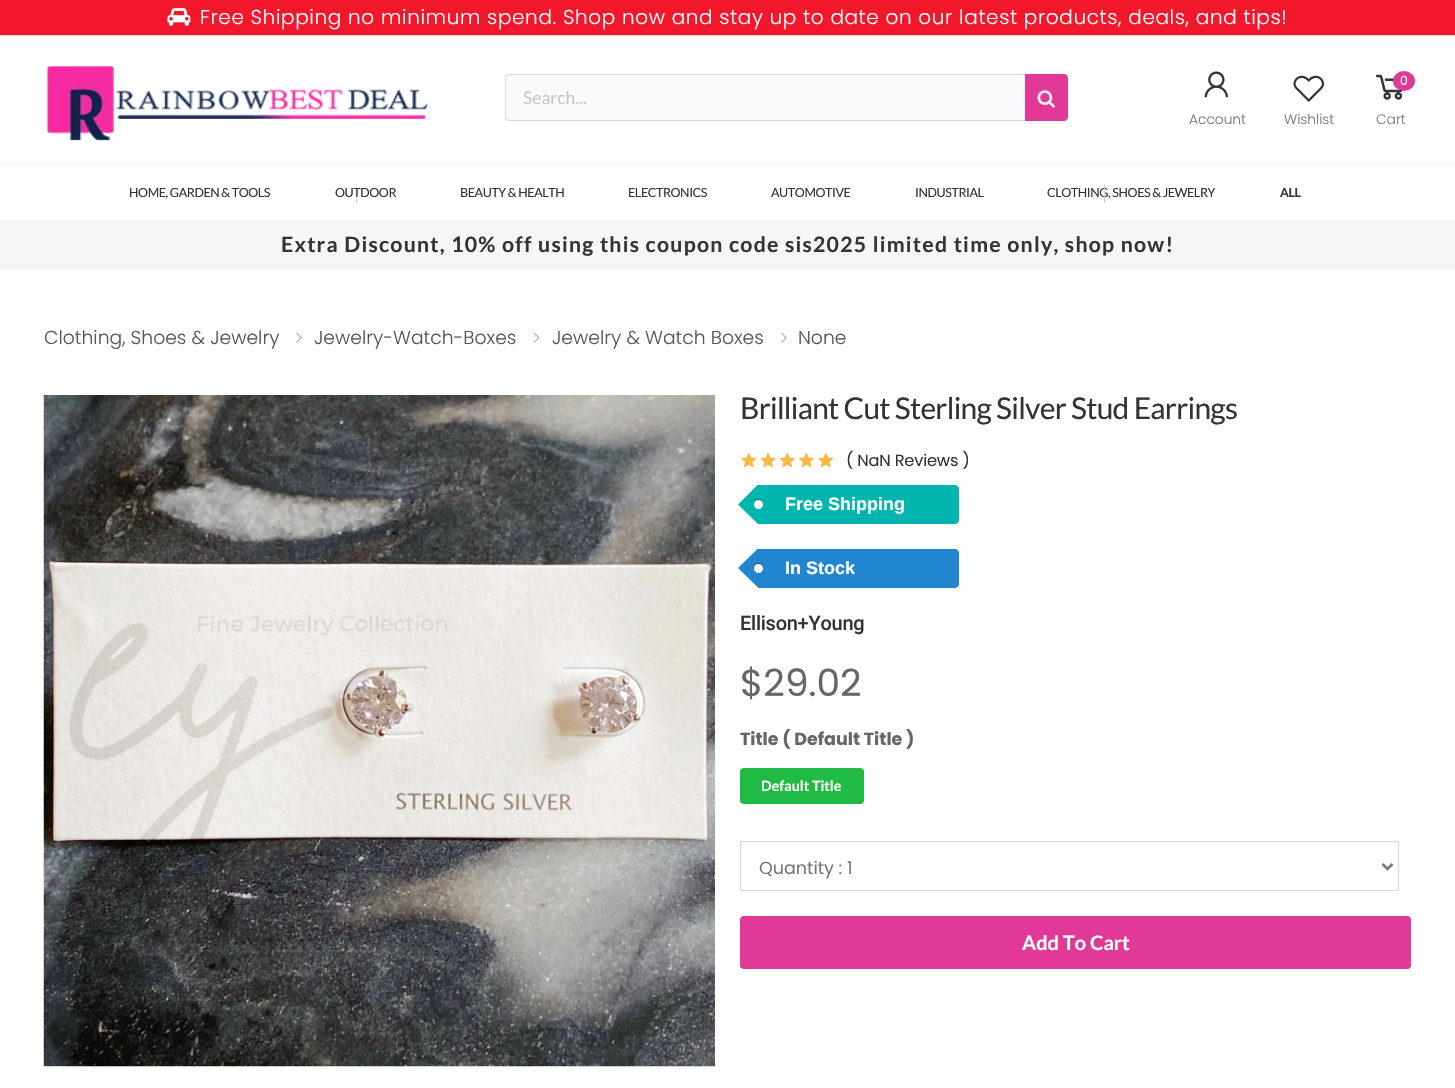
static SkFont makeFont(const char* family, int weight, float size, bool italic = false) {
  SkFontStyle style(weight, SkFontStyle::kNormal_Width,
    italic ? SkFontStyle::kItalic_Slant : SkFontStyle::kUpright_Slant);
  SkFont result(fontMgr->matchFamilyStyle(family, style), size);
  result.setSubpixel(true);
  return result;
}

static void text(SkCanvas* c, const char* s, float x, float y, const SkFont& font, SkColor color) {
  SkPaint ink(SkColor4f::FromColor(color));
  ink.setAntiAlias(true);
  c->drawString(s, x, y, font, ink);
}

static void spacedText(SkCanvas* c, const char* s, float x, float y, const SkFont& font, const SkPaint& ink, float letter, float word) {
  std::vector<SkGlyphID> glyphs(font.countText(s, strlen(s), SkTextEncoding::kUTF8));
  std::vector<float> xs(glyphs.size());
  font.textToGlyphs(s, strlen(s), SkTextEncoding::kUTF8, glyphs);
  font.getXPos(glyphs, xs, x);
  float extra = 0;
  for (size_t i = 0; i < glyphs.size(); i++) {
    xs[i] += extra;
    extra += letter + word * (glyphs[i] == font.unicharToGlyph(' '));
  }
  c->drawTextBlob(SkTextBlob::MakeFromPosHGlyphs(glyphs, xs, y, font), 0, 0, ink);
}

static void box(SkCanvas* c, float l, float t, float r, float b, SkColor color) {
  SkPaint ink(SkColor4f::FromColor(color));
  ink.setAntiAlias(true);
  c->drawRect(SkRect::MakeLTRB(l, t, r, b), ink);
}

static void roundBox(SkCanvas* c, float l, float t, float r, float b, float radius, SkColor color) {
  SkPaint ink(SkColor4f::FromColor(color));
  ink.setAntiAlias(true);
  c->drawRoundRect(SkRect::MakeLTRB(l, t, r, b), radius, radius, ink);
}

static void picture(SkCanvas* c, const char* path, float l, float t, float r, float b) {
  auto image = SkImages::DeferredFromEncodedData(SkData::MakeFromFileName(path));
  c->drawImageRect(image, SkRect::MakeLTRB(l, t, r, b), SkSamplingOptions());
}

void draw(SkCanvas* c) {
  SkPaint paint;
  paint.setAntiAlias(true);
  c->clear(0xffffffff);
  box(c, 0, 0, 1455, 35, 0xfff3172c);
  box(c, 0, 35, 1455, 36, 0xffdadcdf);
  picture(c, "img_01.png", 167, 8, 191, 26);
  SkFont face1 = makeFont("Poppins", 300, 20);
  paint.setColor(0xffffffff);
  spacedText(c, "Free Shipping no minimum spend. Shop now and stay up to date on our latest products, deals, and tips!", 200, 24, face1, paint, 0.62f, 0);
  box(c, 0, 164, 1455, 165, 0xfff4f4f4);
  picture(c, "img_02.png", 47, 66, 428, 141);
  paint.setColor(0xfff9fafb);
  c->drawPath(SkPathBuilder().moveTo(509, 74).lineTo(1025, 74).lineTo(1025, 121).lineTo(509, 121).cubicTo(507, 121, 505, 119, 505, 117).lineTo(505, 78).cubicTo(505, 76, 507, 74, 509, 74).close().detach(), paint);
  paint.setColor(0xffd9dadb);
  c->drawPath(SkPathBuilder().moveTo(509, 74).lineTo(506, 75).lineTo(507, 76).lineTo(509, 75).lineTo(1024, 75).lineTo(1025, 74).close().detach(), paint);
  c->drawPath(SkPathBuilder().moveTo(1025, 121).lineTo(509, 121).lineTo(506, 120).lineTo(507, 119).lineTo(509, 120).lineTo(1024, 120).close().detach(), paint);
  paint.setColor(0x26222426);
  c->drawPath(SkPathBuilder().moveTo(505, 77).lineTo(505, 119).lineTo(506, 120).lineTo(507, 119).lineTo(506, 118).lineTo(506, 77).lineTo(507, 76).lineTo(506, 75).close().detach(), paint);
  SkFont face2 = makeFont("Lato", 400, 17.5f);
  text(c, "Search...", 523, 104, face2, 0xffc7c7c7);
  paint.setColor(0xffe03997);
  c->drawPath(SkPathBuilder().moveTo(1025, 74).lineTo(1064, 74).cubicTo(1066, 74, 1068, 76, 1068, 78).lineTo(1068, 117).cubicTo(1068, 119, 1066, 121, 1064, 121).lineTo(1025, 121).close().detach(), paint);
  picture(c, "img_03.png", 1037, 90, 1055, 108);
  picture(c, "img_04.png", 1204, 71, 1228, 98);
  SkFont face3 = makeFont("Poppins", 300, 13.75f);
  text(c, "Account", 1189, 124, face3, 0xff777777);
  picture(c, "img_05.png", 1293, 75, 1325, 102);
  text(c, "Wishlist", 1284, 124, face3, 0xff777777);
  picture(c, "img_06.png", 1376, 74, 1403, 100);
  c->drawOval(SkRect::MakeLTRB(1393, 71, 1415, 91), paint);
  SkFont face4 = makeFont("Poppins", 400, 12.5f);
  text(c, "0", 1400, 85, face4, 0xffffffff);
  text(c, "Cart", 1376, 124, face3, 0xff777777);
  box(c, 0, 220, 1455, 221, 0xfff5f5f5);
  box(c, 356, 184, 357, 203, 0xffcccccc);
  SkFont face5 = makeFont("Lato", 400, 12.5f);
  paint.setColor(0xff333333);
  spacedText(c, "CLOTHING, SHOES & JEWELRY", 1047, 197, face5, paint, -0.4f, 0);
  box(c, 1104, 184, 1105, 203, 0xffcccccc);
  spacedText(c, "HOME, GARDEN & TOOLS", 129, 197, face5, paint, -0.4f, 0);
  box(c, 356, 185, 357, 199, 0xffffffff);
  spacedText(c, "OUTDOOR", 335, 197, face5, paint, -0.4f, 0);
  spacedText(c, "BEAUTY & HEALTH", 460, 197, face5, paint, -0.4f, 0);
  spacedText(c, "ELECTRONICS", 628, 197, face5, paint, -0.4f, 0);
  spacedText(c, "AUTOMOTIVE", 771, 197, face5, paint, -0.4f, 0);
  spacedText(c, "INDUSTRIAL", 915, 197, face5, paint, -0.4f, 0);
  SkFont face6 = makeFont("Lato", 700, 12.5f);
  spacedText(c, "ALL", 1280, 197, face6, paint, -0.4f, 0);
  box(c, 0, 221, 1455, 270, 0xfff5f6f7);
  SkFont face7 = makeFont("Lato", 700, 21.25f);
  spacedText(c, "Extra Discount, 10% off using this coupon code sis2025 limited time only, shop now!", 281, 252, face7, paint, 1.25f, 0);
  SkFont face8 = makeFont("Poppins", 300, 18.75f);
  text(c, "Clothing, Shoes & Jewelry", 44, 344, face8, 0xff545658);
  picture(c, "img_07.png", 296, 332, 302, 343);
  text(c, "Jewelry-Watch-Boxes", 314, 344, face8, 0xff545658);
  picture(c, "img_08.png", 533, 332, 540, 343);
  text(c, "Jewelry & Watch Boxes", 552, 344, face8, 0xff545658);
  picture(c, "img_07.png", 781, 332, 787, 343);
  text(c, "None", 798, 344, face8, 0xff545658);
  picture(c, "img_09.png", 43, 395, 715, 1067);
  SkFont face9 = makeFont("Lato", 400, 30);
  spacedText(c, "Brilliant Cut Sterling Silver Stud Earrings", 740, 419, face9, paint, -0.75f, 0);
  picture(c, "img_10.png", 741, 452, 834, 468);
  picture(c, "img_11.png", 741, 452, 834, 468);
  SkFont face10 = makeFont("Poppins", 400, 16.25f);
  spacedText(c, "( NaN Reviews )", 846, 466, face10, paint, -0.2f, 0);
  paint.setColor(0xff00b5ad);
  c->drawPath(SkPathBuilder().moveTo(758, 485).lineTo(955, 485).cubicTo(957, 485, 959, 487, 959, 489).lineTo(959, 520).cubicTo(959, 522, 957, 524, 955, 524).lineTo(758, 524).close().detach(), paint);
  c->drawPath(SkPathBuilder().moveTo(738, 504.5f).lineTo(758, 484.5f).lineTo(777.5f, 504.5f).lineTo(758, 524).close().detach(), paint);
  paint.setColor(0x4d000000);
  paint.setMaskFilter(SkMaskFilter::MakeBlur(kNormal_SkBlurStyle, 0.5f));
  c->drawRoundRect(SkRect::MakeLTRB(754, 499, 763, 508), 4.5f, 4.5f, paint);
  paint.setMaskFilter(nullptr);
  paint.setColor(0xffffffff);
  c->drawCircle(758.5f, 504.5f, 4.5f, paint);
  SkFont face11 = makeFont("Liberation Sans", 700, 18);
  text(c, "Free Shipping", 785, 510, face11, 0xffffffff);
  paint.setColor(0xff2185d0);
  c->drawPath(SkPathBuilder().moveTo(758, 549).lineTo(955, 549).cubicTo(957, 549, 959, 551, 959, 553).lineTo(959, 584).cubicTo(959, 586, 957, 588, 955, 588).lineTo(758, 588).close().detach(), paint);
  c->drawPath(SkPathBuilder().moveTo(738, 568).lineTo(758, 548.5f).lineTo(777.5f, 568).lineTo(758, 587.5f).close().detach(), paint);
  paint.setColor(0x4d000000);
  paint.setMaskFilter(SkMaskFilter::MakeBlur(kNormal_SkBlurStyle, 0.5f));
  c->drawRoundRect(SkRect::MakeLTRB(754, 563, 763, 571), 4, 4, paint);
  paint.setMaskFilter(nullptr);
  paint.setColor(0xffffffff);
  c->drawCircle(758.5f, 568.5f, 4.5f, paint);
  text(c, "In Stock", 785, 574, face11, 0xffffffff);
  SkFont face12 = makeFont("Roboto", 500, 20);
  paint.setColor(0xff333333);
  spacedText(c, "Ellison+Young", 740, 630, face12, paint, -0.25f, 0);
  SkFont face13 = makeFont("Poppins", 400, 37.5f);
  text(c, "$29.02", 740, 696, face13, 0xff63676a);
  SkFont face14 = makeFont("Poppins", 700, 17.5f);
  text(c, "Title ( Default Title )", 740, 745, face14, 0xff63676a);
  roundBox(c, 740, 768, 864, 804, 4, 0xff21ba45);
  SkFont face15 = makeFont("Lato", 700, 14.25f);
  text(c, "Default Title", 761, 791, face15, 0xffffffff);
  paint.setStyle(SkPaint::kStroke_Style);
  paint.setStrokeWidth(1);
  paint.setColor(0xffd7d7d7);
  c->drawRect(SkRect::MakeLTRB(740.5f, 841.5f, 1398.5f, 890.5f), paint);
  paint.setStrokeWidth(2.5f);
  paint.setColor(0xff777777);
  c->drawPath(SkPathBuilder().moveTo(1382.5f, 864).lineTo(1387.5f, 869).lineTo(1392.5f, 864).detach(), paint);
  SkFont face16 = makeFont("Poppins", 400, 17.5f);
  text(c, "Quantity : 1", 759, 874, face16, 0xff777777);
  roundBox(c, 740, 916, 1411, 969, 4, 0xffe03997);
  SkFont face17 = makeFont("Lato", 700, 20);
  text(c, "Add To Cart", 1022, 950, face17, 0xffffffff);
}
